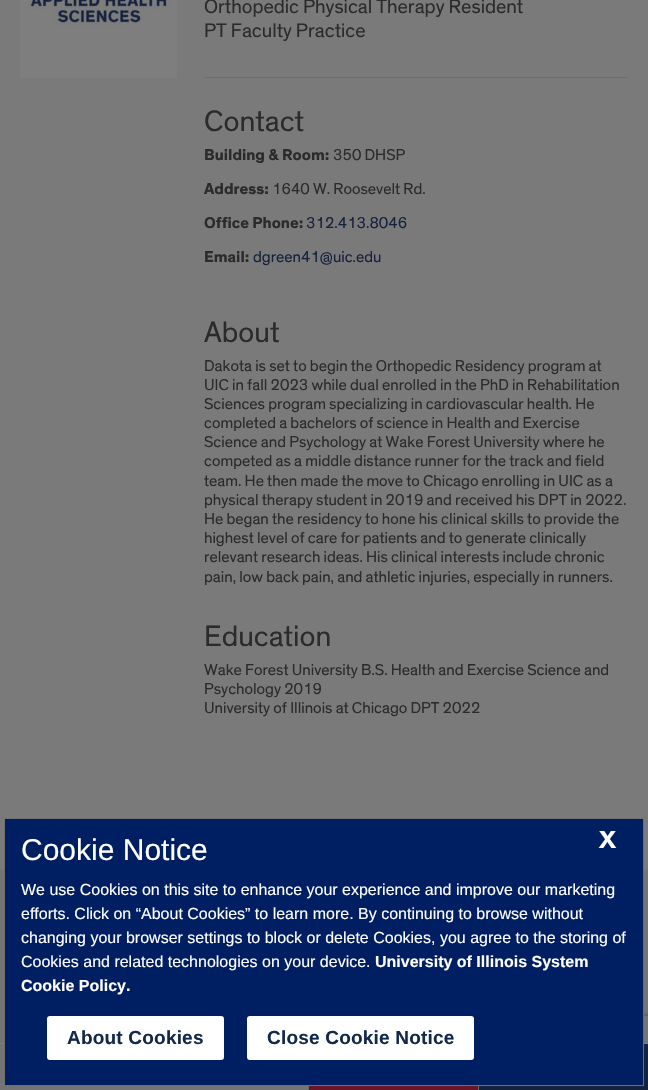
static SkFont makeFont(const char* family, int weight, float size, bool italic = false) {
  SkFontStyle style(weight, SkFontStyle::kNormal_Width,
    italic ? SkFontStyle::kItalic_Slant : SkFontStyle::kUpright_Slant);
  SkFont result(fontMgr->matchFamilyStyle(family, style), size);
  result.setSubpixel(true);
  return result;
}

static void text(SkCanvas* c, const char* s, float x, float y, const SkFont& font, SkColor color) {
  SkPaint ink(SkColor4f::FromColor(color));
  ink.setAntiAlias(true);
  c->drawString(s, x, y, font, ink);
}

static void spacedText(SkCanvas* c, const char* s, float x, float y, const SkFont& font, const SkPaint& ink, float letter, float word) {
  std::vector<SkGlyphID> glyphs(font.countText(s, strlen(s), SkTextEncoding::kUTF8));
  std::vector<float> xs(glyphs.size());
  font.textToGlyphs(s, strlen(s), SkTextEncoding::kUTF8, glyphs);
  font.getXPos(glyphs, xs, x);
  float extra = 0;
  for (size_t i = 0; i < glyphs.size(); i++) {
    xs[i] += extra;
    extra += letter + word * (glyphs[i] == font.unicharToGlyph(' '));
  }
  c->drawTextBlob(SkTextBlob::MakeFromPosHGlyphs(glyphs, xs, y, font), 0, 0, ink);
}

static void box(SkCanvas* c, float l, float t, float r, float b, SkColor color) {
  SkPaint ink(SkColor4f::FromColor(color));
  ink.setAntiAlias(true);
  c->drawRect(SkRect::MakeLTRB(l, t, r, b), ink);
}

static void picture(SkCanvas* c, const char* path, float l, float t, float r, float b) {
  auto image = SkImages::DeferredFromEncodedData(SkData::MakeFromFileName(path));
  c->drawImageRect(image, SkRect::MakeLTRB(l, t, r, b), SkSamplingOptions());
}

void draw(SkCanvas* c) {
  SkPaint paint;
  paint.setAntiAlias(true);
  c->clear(0xff7a7a7a);
  picture(c, "img_01.png", 20, 0, 177, 78);
  box(c, 204, 77, 628, 78, 0xff6e6e6e);
  SkFont face1 = makeFont("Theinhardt", 400, 20);
  text(c, "Orthopedic Physical Therapy Resident", 204, 13, face1, 0xff2b2b2b);
  text(c, "PT Faculty Practice", 204, 37, face1, 0xff2b2b2b);
  SkFont face2 = makeFont("Theinhardt", 400, 30);
  text(c, "Contact", 204, 131, face2, 0xff2b2b2b);
  SkFont face3 = makeFont("Theinhardt", 700, 16);
  text(c, "Building & Room:", 204, 160, face3, 0xff2b2b2b);
  SkFont face4 = makeFont("Theinhardt", 400, 16);
  text(c, "350 DHSP", 333, 160, face4, 0xff2b2b2b);
  text(c, "Address:", 204, 194, face3, 0xff2b2b2b);
  text(c, "1640 W. Roosevelt Rd.", 272, 194, face4, 0xff2b2b2b);
  text(c, "Office Phone:", 204, 228, face3, 0xff2b2b2b);
  text(c, "312.413.8046", 306, 228, face4, 0xff15223d);
  text(c, "Email:", 204, 262, face3, 0xff2b2b2b);
  text(c, "dgreen41@uic.edu", 253, 262, face4, 0xff15223d);
  text(c, "About", 204, 342, face2, 0xff2b2b2b);
  text(c, "Dakota is set to begin the Orthopedic Residency program at", 204, 371, face4, 0xff2b2b2b);
  text(c, "UIC in fall 2023 while dual enrolled in the PhD in Rehabilitation", 204, 390, face4, 0xff2b2b2b);
  text(c, "Sciences program specializing in cardiovascular health. He", 204, 409, face4, 0xff2b2b2b);
  text(c, "completed a bachelors of science in Health and Exercise", 204, 428, face4, 0xff2b2b2b);
  text(c, "Science and Psychology at Wake Forest University where he", 204, 447, face4, 0xff2b2b2b);
  text(c, "competed as a middle distance runner for the track and field", 204, 466, face4, 0xff2b2b2b);
  text(c, "team. He then made the move to Chicago enrolling in UIC as a", 204, 486, face4, 0xff2b2b2b);
  text(c, "physical therapy student in 2019 and received his DPT in 2022.", 204, 505, face4, 0xff2b2b2b);
  text(c, "He began the residency to hone his clinical skills to provide the", 204, 524, face4, 0xff2b2b2b);
  text(c, "highest level of care for patients and to generate clinically", 204, 543, face4, 0xff2b2b2b);
  text(c, "relevant research ideas. His clinical interests include chronic", 204, 562, face4, 0xff2b2b2b);
  text(c, "pain, low back pain, and athletic injuries, especially in runners.", 204, 582, face4, 0xff2b2b2b);
  text(c, "Education", 204, 646, face2, 0xff2b2b2b);
  text(c, "Wake Forest University B.S. Health and Exercise Science and", 204, 675, face4, 0xff2b2b2b);
  text(c, "Psychology 2019", 204, 694, face4, 0xff2b2b2b);
  text(c, "University of Illinois at Chicago DPT 2022", 204, 713, face4, 0xff2b2b2b);
  box(c, 0, 870, 648, 1043, 0xff747474);
  c->save();
  c->clipRect(SkRect::MakeLTRB(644, 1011, 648, 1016));
  paint.setColor(0xff4a4a4a);
  paint.setMaskFilter(SkMaskFilter::MakeBlur(kNormal_SkBlurStyle, 2.5f));
  c->drawRoundRect(SkRect::MakeLTRB(578, 1016, 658, 1076), 2, 2, paint);
  paint.setMaskFilter(nullptr);
  c->restore();
  box(c, 0, 1044, 308, 1090, 0xff747474);
  box(c, 0, 1043, 648, 1044, 0xff7e7e7e);
  box(c, 479, 1044, 648, 1090, 0xff15223d);
  paint.setColor(0xff001e62);
  c->drawRect(SkRect::MakeLTRB(4.5f, 818.5f, 643.5f, 1085.5f), paint);
  paint.setStyle(SkPaint::kStroke_Style);
  paint.setStrokeWidth(1);
  paint.setColor(0xff707070);
  c->drawRect(SkRect::MakeLTRB(4.5f, 818.5f, 643.5f, 1085.5f), paint);
  SkFont face5 = makeFont("Liberation Sans", 400, 30);
  text(c, "Cookie Notice", 21, 860, face5, 0xffffffff);
  SkFont face6 = makeFont("Theinhardt", 700, 25);
  text(c, "X", 599, 848, face6, 0xffffffff);
  SkFont face7 = makeFont("Liberation Sans", 400, 16);
  text(c, "We use Cookies on this site to enhance your experience and improve our marketing", 21, 895, face7, 0xffffffff);
  text(c, "efforts. Click on “About Cookies” to learn more. By continuing to browse without", 21, 919, face7, 0xffffffff);
  text(c, "changing your browser settings to block or delete Cookies, you agree to the storing of", 21, 943, face7, 0xffffffff);
  text(c, "Cookies and related technologies on your device.", 21, 967, face7, 0xffffffff);
  SkFont face8 = makeFont("Liberation Sans", 700, 16);
  text(c, "University of Illinois System", 375, 967, face8, 0xffffffff);
  text(c, "Cookie Policy.", 21, 991, face8, 0xffffffff);
  paint.setStyle(SkPaint::kFill_Style);
  paint.setColor(0xffffffff);
  c->drawRoundRect(SkRect::MakeLTRB(46, 1015, 225, 1061), 4, 4, paint);
  paint.setStyle(SkPaint::kStroke_Style);
  paint.setStrokeWidth(2);
  paint.setColor(0xff001e62);
  c->drawRoundRect(SkRect::MakeLTRB(46, 1015, 225, 1061), 4, 4, paint);
  SkFont face9 = makeFont("Liberation Sans", 700, 19);
  paint.setStyle(SkPaint::kFill_Style);
  paint.setColor(0xff13294b);
  spacedText(c, "About Cookies", 67, 1044, face9, paint, 0.2f, 0);
  paint.setColor(0xffffffff);
  c->drawRoundRect(SkRect::MakeLTRB(246, 1015, 475, 1061), 4, 4, paint);
  paint.setStyle(SkPaint::kStroke_Style);
  paint.setColor(0xff001e62);
  c->drawRoundRect(SkRect::MakeLTRB(246, 1015, 475, 1061), 4, 4, paint);
  paint.setStyle(SkPaint::kFill_Style);
  paint.setColor(0xff13294b);
  spacedText(c, "Close Cookie Notice", 267, 1044, face9, paint, 0.2f, 0);
  box(c, 309, 1086, 478, 1090, 0xff6b1529);
  box(c, 308, 1086, 309, 1090, 0xff696969);
  box(c, 478, 1086, 479, 1090, 0xff696969);
}
